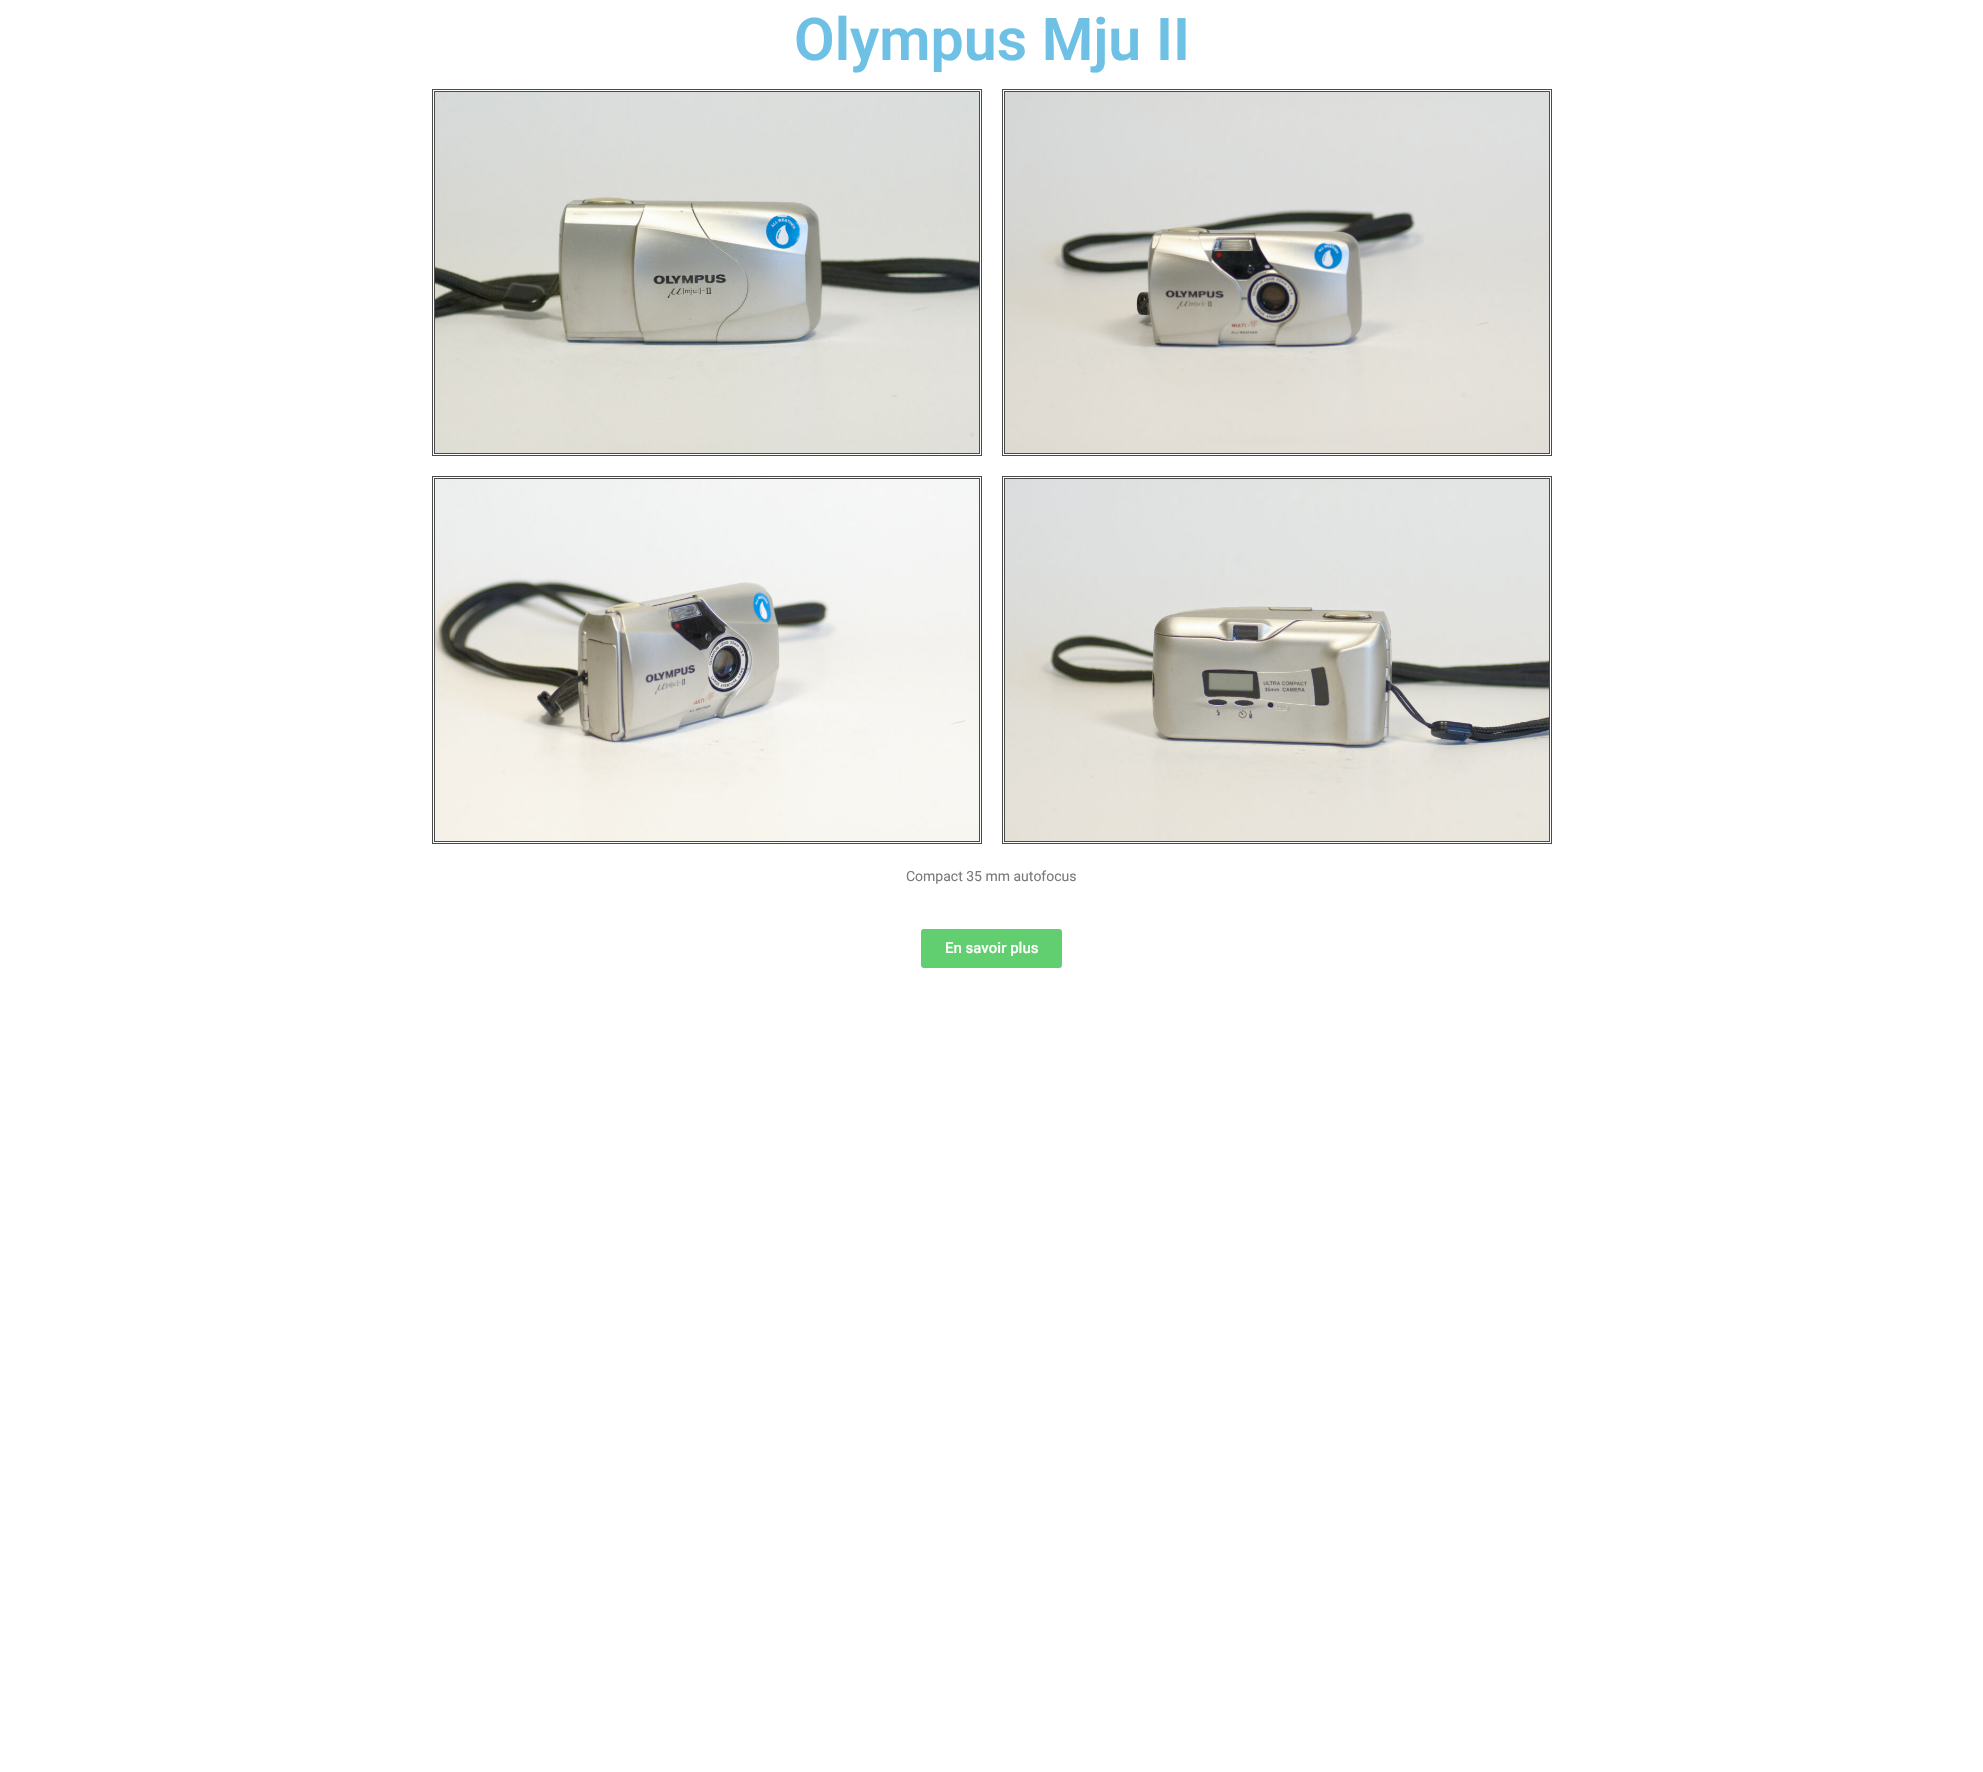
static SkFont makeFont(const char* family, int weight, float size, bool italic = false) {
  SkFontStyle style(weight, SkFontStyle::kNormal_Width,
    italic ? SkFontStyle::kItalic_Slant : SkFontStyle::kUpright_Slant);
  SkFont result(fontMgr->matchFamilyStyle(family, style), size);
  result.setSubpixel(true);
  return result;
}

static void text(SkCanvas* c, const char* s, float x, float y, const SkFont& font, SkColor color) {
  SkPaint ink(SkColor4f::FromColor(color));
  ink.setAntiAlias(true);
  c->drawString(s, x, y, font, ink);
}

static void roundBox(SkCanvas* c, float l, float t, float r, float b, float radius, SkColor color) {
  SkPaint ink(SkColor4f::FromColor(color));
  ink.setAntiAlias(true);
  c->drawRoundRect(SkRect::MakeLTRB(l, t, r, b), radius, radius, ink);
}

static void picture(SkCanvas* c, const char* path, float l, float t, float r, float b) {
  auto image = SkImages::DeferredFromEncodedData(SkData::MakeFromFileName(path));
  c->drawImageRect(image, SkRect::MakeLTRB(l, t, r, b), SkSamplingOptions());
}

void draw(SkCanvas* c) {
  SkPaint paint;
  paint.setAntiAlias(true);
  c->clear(0xffffffff);
  SkFont face1 = makeFont("Roboto", 600, 59);
  text(c, "Olympus Mju II", 794, 60, face1, 0xff6ec1e4);
  paint.setStyle(SkPaint::kStroke_Style);
  paint.setStrokeWidth(1);
  paint.setColor(0xff4a4a4a);
  c->drawRect(SkRect::MakeLTRB(432.5f, 89.5f, 981.5f, 455.5f), paint);
  c->drawRect(SkRect::MakeLTRB(434.5f, 91.5f, 979.5f, 453.5f), paint);
  picture(c, "img_01.png", 435, 92, 979, 453);
  c->drawRect(SkRect::MakeLTRB(1002.5f, 89.5f, 1551.5f, 455.5f), paint);
  c->drawRect(SkRect::MakeLTRB(1004.5f, 91.5f, 1549.5f, 453.5f), paint);
  picture(c, "img_02.png", 1005, 92, 1549, 453);
  c->drawRect(SkRect::MakeLTRB(432.5f, 476.5f, 981.5f, 843.5f), paint);
  c->drawRect(SkRect::MakeLTRB(434.5f, 478.5f, 979.5f, 841.5f), paint);
  picture(c, "img_03.png", 435, 479, 979, 841);
  c->drawRect(SkRect::MakeLTRB(1002.5f, 476.5f, 1551.5f, 843.5f), paint);
  c->drawRect(SkRect::MakeLTRB(1004.5f, 478.5f, 1549.5f, 841.5f), paint);
  picture(c, "img_04.png", 1005, 479, 1549, 841);
  SkFont face2 = makeFont("Roboto", 400, 14);
  text(c, "Compact 35 mm autofocus", 906, 881, face2, 0xff7a7a7a);
  roundBox(c, 921, 929, 1062, 968, 3, 0xff61ce70);
  SkFont face3 = makeFont("Roboto", 500, 15);
  text(c, "En savoir plus", 945, 953, face3, 0xffffffff);
}
